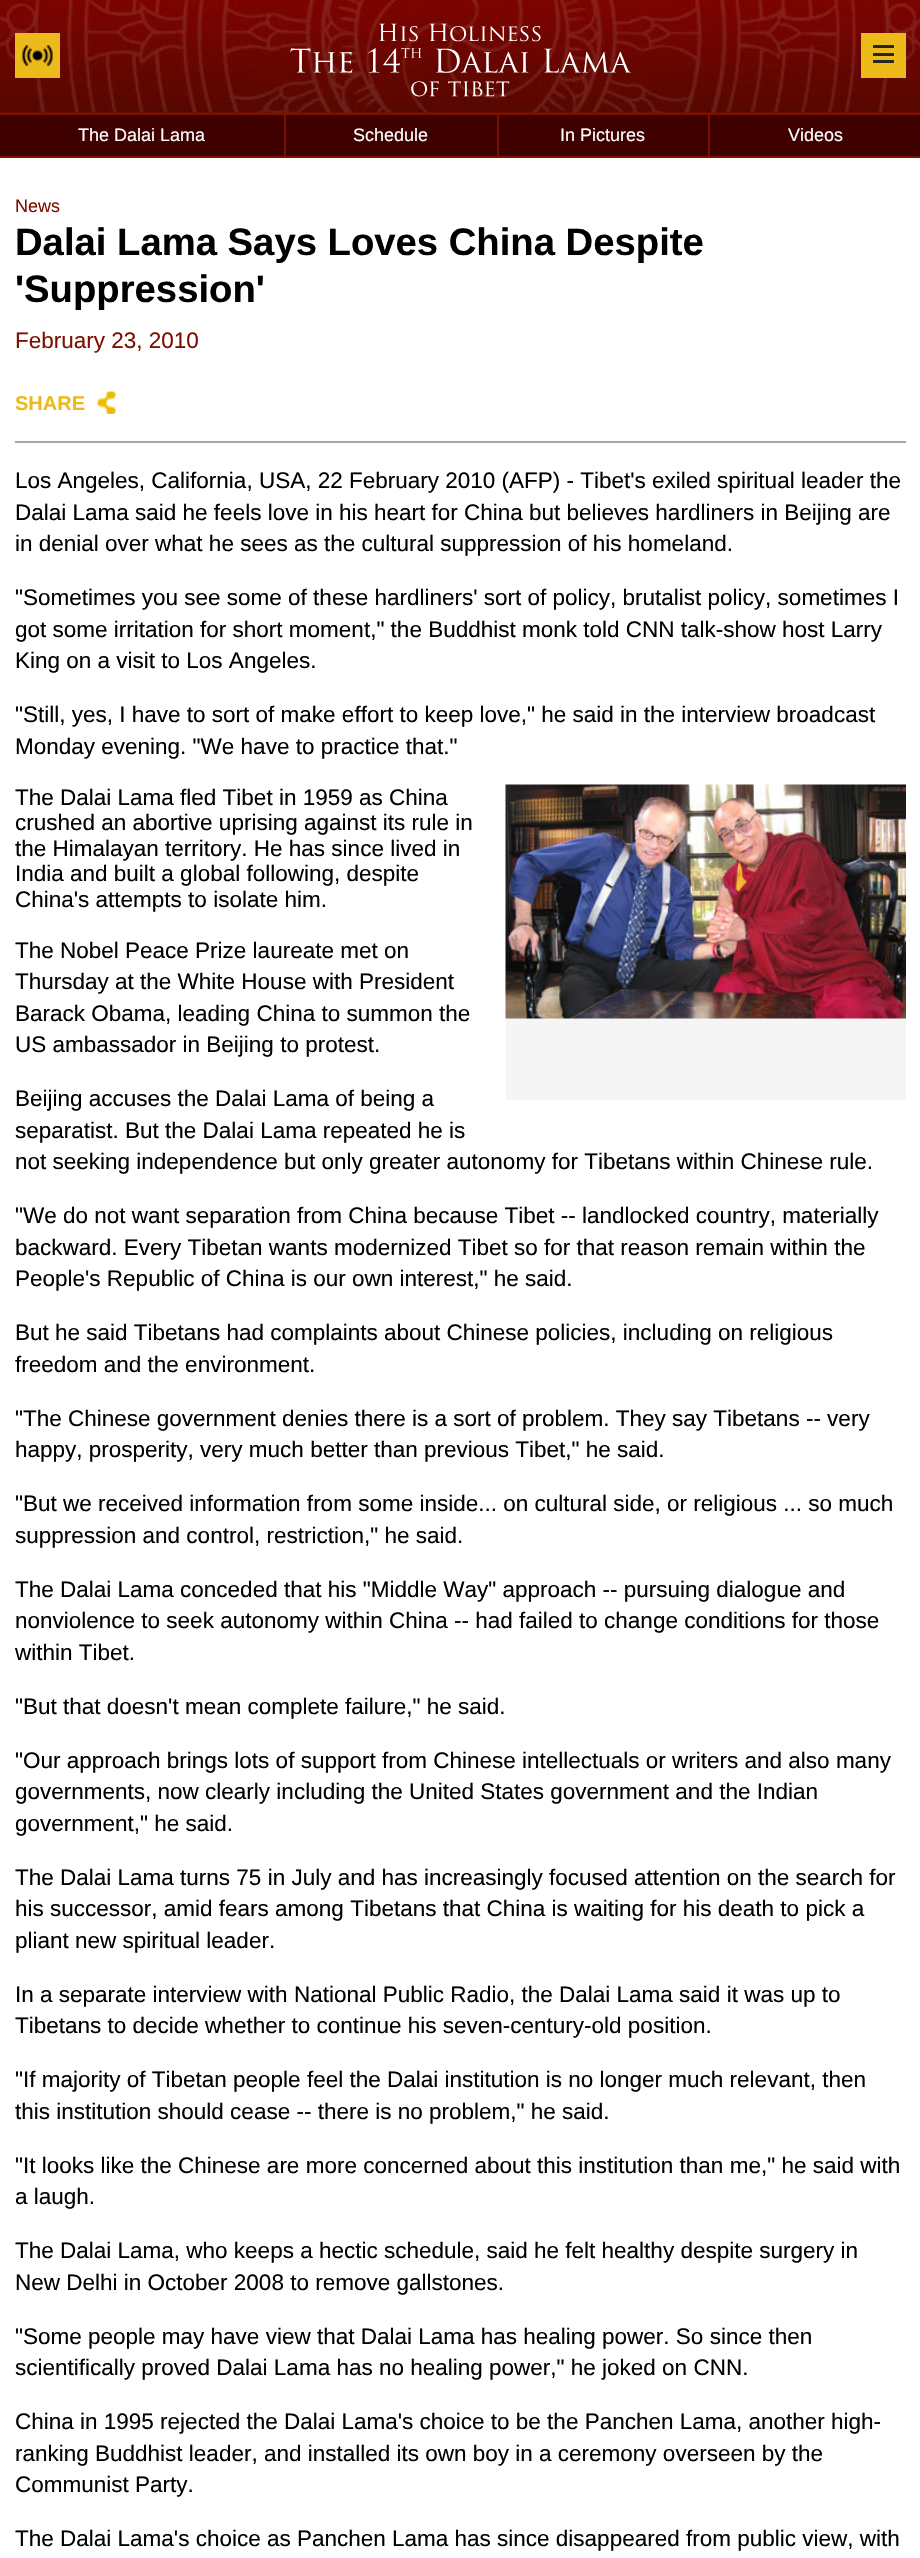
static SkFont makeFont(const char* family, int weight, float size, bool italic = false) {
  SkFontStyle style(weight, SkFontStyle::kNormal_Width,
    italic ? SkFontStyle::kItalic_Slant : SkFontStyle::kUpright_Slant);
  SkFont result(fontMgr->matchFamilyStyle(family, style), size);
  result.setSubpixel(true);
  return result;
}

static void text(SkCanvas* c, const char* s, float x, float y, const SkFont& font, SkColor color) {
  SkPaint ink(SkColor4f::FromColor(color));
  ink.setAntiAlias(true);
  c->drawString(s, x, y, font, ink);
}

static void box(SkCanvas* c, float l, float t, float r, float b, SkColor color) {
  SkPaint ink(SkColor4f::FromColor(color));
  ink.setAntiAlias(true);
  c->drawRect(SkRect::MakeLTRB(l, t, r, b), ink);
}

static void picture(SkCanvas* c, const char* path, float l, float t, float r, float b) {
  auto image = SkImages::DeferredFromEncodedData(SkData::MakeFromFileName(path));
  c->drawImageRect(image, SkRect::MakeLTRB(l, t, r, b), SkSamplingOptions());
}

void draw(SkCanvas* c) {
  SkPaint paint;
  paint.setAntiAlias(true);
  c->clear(0xffffffff);
  box(c, 0, 112, 920, 115, 0xff7c1000);
  picture(c, "img_01.png", 0, 0, 920, 113);
  box(c, 15, 33, 60, 78, 0xffedba1c);
  picture(c, "img_02.png", 22, 45, 53, 66);
  picture(c, "img_03.png", 290, 23, 632, 97);
  box(c, 861, 33, 906, 78, 0xffedba1c);
  box(c, 873, 45, 894, 48, 0xff262626);
  box(c, 873, 53, 894, 56, 0xff262626);
  box(c, 873, 60, 894, 63, 0xff262626);
  box(c, 0, 115, 920, 156, 0xff3f0000);
  box(c, 0, 156, 920, 158, 0xff7c1000);
  box(c, 284, 114, 286, 156, 0xff7c1000);
  SkFont face1 = makeFont("Liberation Sans", 400, 18);
  text(c, "The Dalai Lama", 78, 141, face1, 0xffffffff);
  box(c, 497, 114, 499, 156, 0xff7c1000);
  text(c, "Schedule", 353, 141, face1, 0xffffffff);
  box(c, 708, 114, 710, 156, 0xff7c1000);
  text(c, "In Pictures", 560, 141, face1, 0xffffffff);
  text(c, "Videos", 788, 141, face1, 0xffffffff);
  box(c, 15, 441, 906, 443, 0xffa6a6a6);
  text(c, "News", 15, 212, face1, 0xff7c1000);
  SkFont face2 = makeFont("Liberation Sans", 700, 38.25f);
  text(c, "Dalai Lama Says Loves China Despite", 15, 255, face2, 0xff000000);
  text(c, "'Suppression'", 15, 302, face2, 0xff000000);
  SkFont face3 = makeFont("Liberation Sans", 400, 22.5f);
  text(c, "February 23, 2010", 15, 348, face3, 0xff7c1000);
  SkFont face4 = makeFont("Liberation Sans", 700, 20);
  text(c, "SHARE", 15, 410, face4, 0xffedba1c);
  picture(c, "img_04.png", 97, 391, 116, 414);
  text(c, "Los Angeles, California, USA, 22 February 2010 (AFP) - Tibet's exiled spiritual leader the", 15, 488, face3, 0xff000000);
  text(c, "Dalai Lama said he feels love in his heart for China but believes hardliners in Beijing are", 15, 520, face3, 0xff000000);
  text(c, "in denial over what he sees as the cultural suppression of his homeland.", 15, 551, face3, 0xff000000);
  text(c, "\"Sometimes you see some of these hardliners' sort of policy, brutalist policy, sometimes I", 15, 605, face3, 0xff000000);
  text(c, "got some irritation for short moment,\" the Buddhist monk told CNN talk-show host Larry", 15, 637, face3, 0xff000000);
  text(c, "King on a visit to Los Angeles.", 15, 668, face3, 0xff000000);
  text(c, "\"Still, yes, I have to sort of make effort to keep love,\" he said in the interview broadcast", 15, 722, face3, 0xff000000);
  text(c, "Monday evening. \"We have to practice that.\"", 15, 754, face3, 0xff000000);
  text(c, "The Dalai Lama fled Tibet in 1959 as China", 15, 805, face3, 0xff000000);
  box(c, 506, 1018, 906, 1100, 0xfff5f5f5);
  picture(c, "img_05.png", 505, 784, 906, 1019);
  text(c, "crushed an abortive uprising against its rule in", 15, 830, face3, 0xff000000);
  text(c, "the Himalayan territory. He has since lived in", 15, 856, face3, 0xff000000);
  text(c, "India and built a global following, despite", 15, 881, face3, 0xff000000);
  text(c, "China's attempts to isolate him.", 15, 907, face3, 0xff000000);
  text(c, "The Nobel Peace Prize laureate met on", 15, 958, face3, 0xff000000);
  text(c, "Thursday at the White House with President", 15, 989, face3, 0xff000000);
  text(c, "Barack Obama, leading China to summon the", 15, 1021, face3, 0xff000000);
  text(c, "US ambassador in Beijing to protest.", 15, 1052, face3, 0xff000000);
  text(c, "Beijing accuses the Dalai Lama of being a", 15, 1106, face3, 0xff000000);
  text(c, "separatist. But the Dalai Lama repeated he is", 15, 1138, face3, 0xff000000);
  text(c, "not seeking independence but only greater autonomy for Tibetans within Chinese rule.", 15, 1169, face3, 0xff000000);
  text(c, "\"We do not want separation from China because Tibet -- landlocked country, materially", 15, 1223, face3, 0xff000000);
  text(c, "backward. Every Tibetan wants modernized Tibet so for that reason remain within the", 15, 1255, face3, 0xff000000);
  text(c, "People's Republic of China is our own interest,\" he said.", 15, 1286, face3, 0xff000000);
  text(c, "But he said Tibetans had complaints about Chinese policies, including on religious", 15, 1340, face3, 0xff000000);
  text(c, "freedom and the environment.", 15, 1372, face3, 0xff000000);
  text(c, "\"The Chinese government denies there is a sort of problem. They say Tibetans -- very", 15, 1426, face3, 0xff000000);
  text(c, "happy, prosperity, very much better than previous Tibet,\" he said.", 15, 1457, face3, 0xff000000);
  text(c, "\"But we received information from some inside... on cultural side, or religious ... so much", 15, 1511, face3, 0xff000000);
  text(c, "suppression and control, restriction,\" he said.", 15, 1543, face3, 0xff000000);
  text(c, "The Dalai Lama conceded that his \"Middle Way\" approach -- pursuing dialogue and", 15, 1597, face3, 0xff000000);
  text(c, "nonviolence to seek autonomy within China -- had failed to change conditions for those", 15, 1628, face3, 0xff000000);
  text(c, "within Tibet.", 15, 1660, face3, 0xff000000);
  text(c, "\"But that doesn't mean complete failure,\" he said.", 15, 1714, face3, 0xff000000);
  text(c, "\"Our approach brings lots of support from Chinese intellectuals or writers and also many", 15, 1768, face3, 0xff000000);
  text(c, "governments, now clearly including the United States government and the Indian", 15, 1799, face3, 0xff000000);
  text(c, "government,\" he said.", 15, 1831, face3, 0xff000000);
  text(c, "The Dalai Lama turns 75 in July and has increasingly focused attention on the search for", 15, 1885, face3, 0xff000000);
  text(c, "his successor, amid fears among Tibetans that China is waiting for his death to pick a", 15, 1916, face3, 0xff000000);
  text(c, "pliant new spiritual leader.", 15, 1948, face3, 0xff000000);
  text(c, "In a separate interview with National Public Radio, the Dalai Lama said it was up to", 15, 2002, face3, 0xff000000);
  text(c, "Tibetans to decide whether to continue his seven-century-old position.", 15, 2033, face3, 0xff000000);
  text(c, "\"If majority of Tibetan people feel the Dalai institution is no longer much relevant, then", 15, 2087, face3, 0xff000000);
  text(c, "this institution should cease -- there is no problem,\" he said.", 15, 2119, face3, 0xff000000);
  text(c, "\"It looks like the Chinese are more concerned about this institution than me,\" he said with", 15, 2173, face3, 0xff000000);
  text(c, "a laugh.", 15, 2204, face3, 0xff000000);
  text(c, "The Dalai Lama, who keeps a hectic schedule, said he felt healthy despite surgery in", 15, 2258, face3, 0xff000000);
  text(c, "New Delhi in October 2008 to remove gallstones.", 15, 2290, face3, 0xff000000);
  text(c, "\"Some people may have view that Dalai Lama has healing power. So since then", 15, 2344, face3, 0xff000000);
  text(c, "scientifically proved Dalai Lama has no healing power,\" he joked on CNN.", 15, 2375, face3, 0xff000000);
  text(c, "China in 1995 rejected the Dalai Lama's choice to be the Panchen Lama, another high-", 15, 2429, face3, 0xff000000);
  text(c, "ranking Buddhist leader, and installed its own boy in a ceremony overseen by the", 15, 2461, face3, 0xff000000);
  text(c, "Communist Party.", 15, 2492, face3, 0xff000000);
  text(c, "The Dalai Lama's choice as Panchen Lama has since disappeared from public view, with", 15, 2546, face3, 0xff000000);
}
